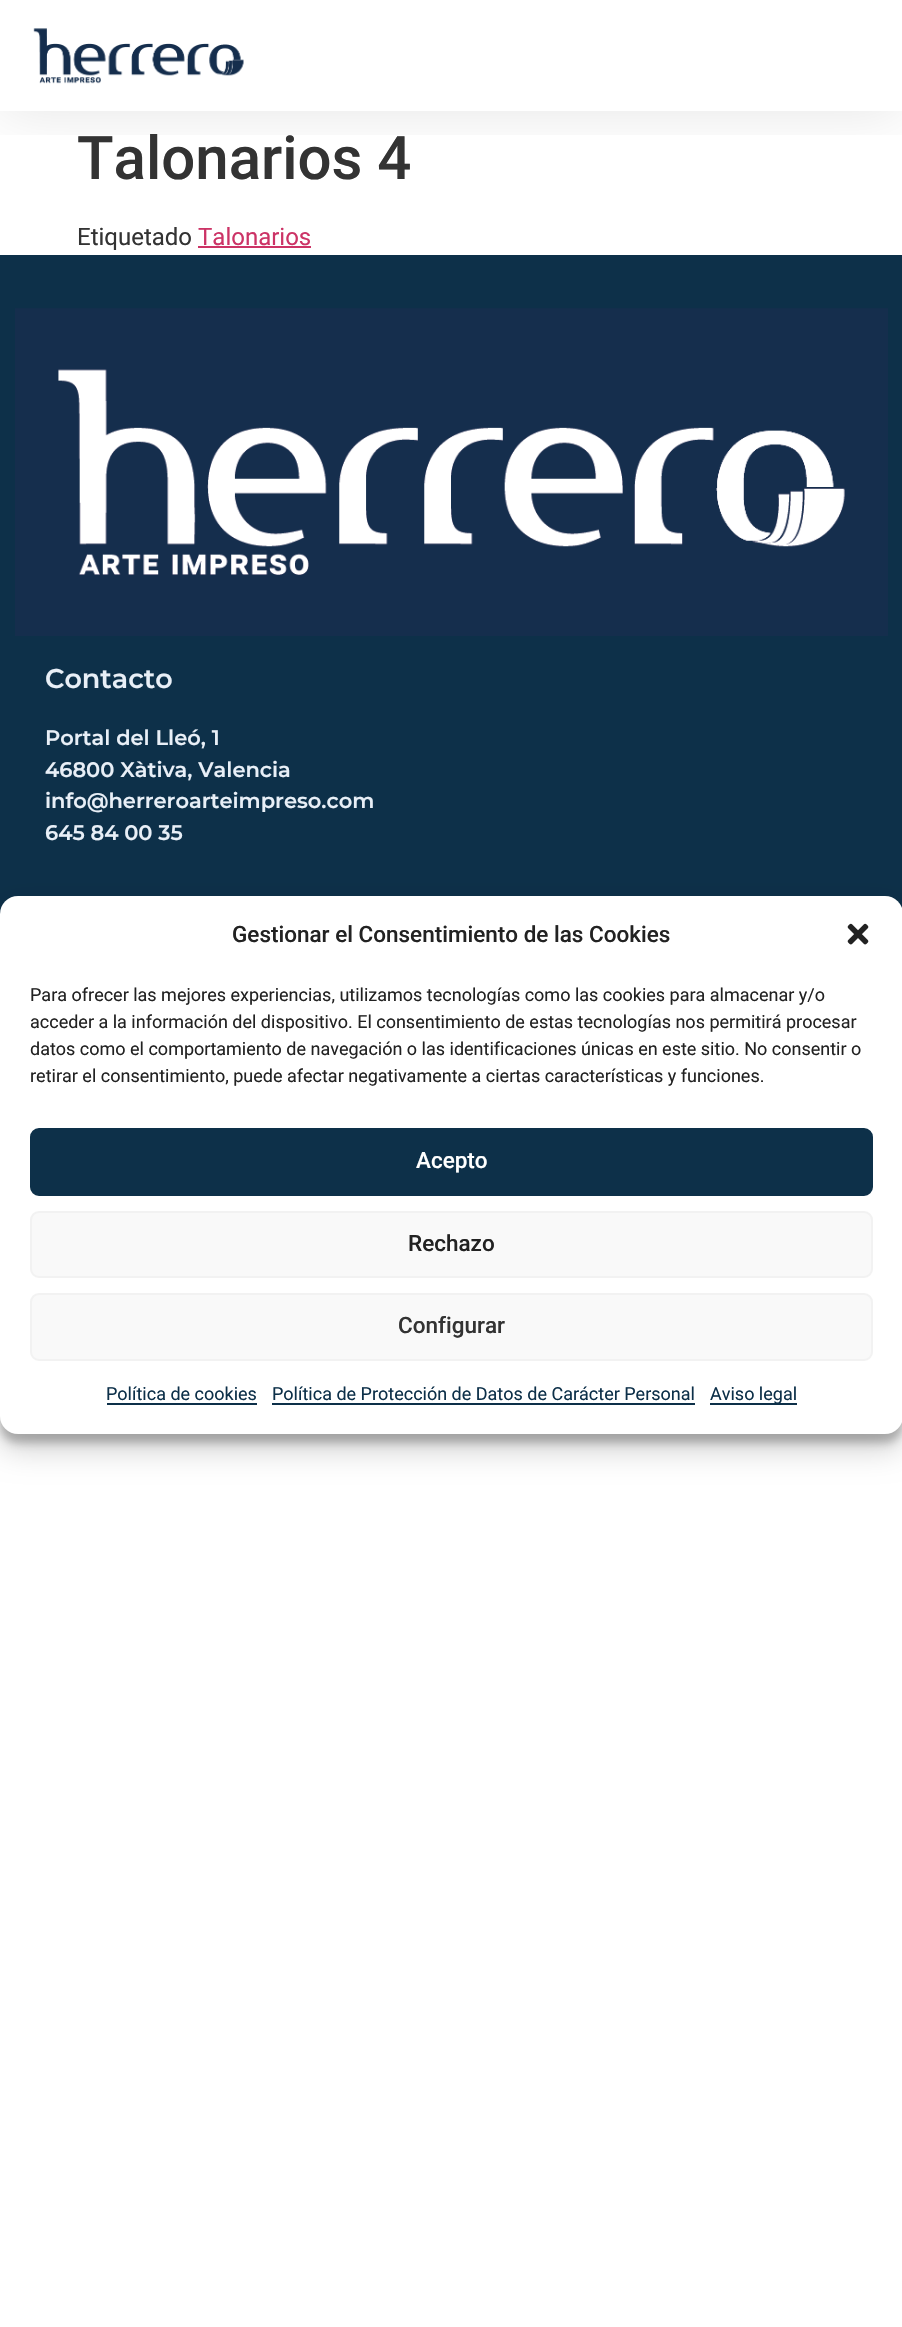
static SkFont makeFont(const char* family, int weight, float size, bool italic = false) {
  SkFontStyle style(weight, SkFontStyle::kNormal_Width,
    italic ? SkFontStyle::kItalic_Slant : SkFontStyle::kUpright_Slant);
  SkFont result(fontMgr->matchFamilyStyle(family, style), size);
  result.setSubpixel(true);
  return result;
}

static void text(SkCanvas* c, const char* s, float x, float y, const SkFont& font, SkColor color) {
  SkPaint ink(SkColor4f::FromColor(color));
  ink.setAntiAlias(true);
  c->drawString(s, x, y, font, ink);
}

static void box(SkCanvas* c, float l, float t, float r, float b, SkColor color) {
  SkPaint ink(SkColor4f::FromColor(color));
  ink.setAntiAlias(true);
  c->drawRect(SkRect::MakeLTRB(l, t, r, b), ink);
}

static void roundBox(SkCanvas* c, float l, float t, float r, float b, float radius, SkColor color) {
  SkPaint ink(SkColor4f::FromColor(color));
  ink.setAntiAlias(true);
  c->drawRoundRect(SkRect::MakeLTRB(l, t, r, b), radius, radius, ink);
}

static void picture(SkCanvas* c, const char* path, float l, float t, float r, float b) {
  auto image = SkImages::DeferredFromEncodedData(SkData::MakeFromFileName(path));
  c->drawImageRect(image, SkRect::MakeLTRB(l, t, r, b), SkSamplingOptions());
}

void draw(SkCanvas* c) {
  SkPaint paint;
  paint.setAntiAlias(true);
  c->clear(0xffffffff);
  c->save();
  c->clipRect(SkRect::MakeLTRB(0, 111, 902, 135));
  paint.setColor(0x1a000000);
  paint.setMaskFilter(SkMaskFilter::MakeBlur(kNormal_SkBlurStyle, 28.5f));
  c->drawRect(SkRect::MakeLTRB(0, 0, 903, 111), paint);
  paint.setMaskFilter(nullptr);
  c->restore();
  picture(c, "img_01.png", 33, 28, 244, 84);
  SkFont face1 = makeFont("Roboto", 500, 60);
  text(c, "Talonarios 4", 77, 179, face1, 0xff333333);
  SkFont face2 = makeFont("Roboto", 400, 24);
  text(c, "Etiquetado", 77, 245, face2, 0xff333333);
  text(c, "Talonarios", 198, 245, face2, 0xffcc3366);
  box(c, 198, 246, 311, 248, 0xffcc3366);
  box(c, 0, 255, 902, 914, 0xff0d3049);
  picture(c, "img_02.png", 15, 308, 888, 636);
  SkFont face3 = makeFont("Montserrat", 600, 27);
  text(c, "Contacto", 45, 688, face3, 0xffe8eff7);
  SkFont face4 = makeFont("Montserrat", 600, 21);
  text(c, "Portal del Lleó, 1", 45, 745, face4, 0xffe8eff7);
  text(c, "46800 Xàtiva, Valencia", 45, 777, face4, 0xffe8eff7);
  text(c, "info@herreroarteimpreso.com", 45, 808, face4, 0xffe8eff7);
  text(c, "645 84 00 35", 45, 840, face4, 0xffe8eff7);
  paint.setColor(0x3b000000);
  paint.setMaskFilter(SkMaskFilter::MakeBlur(kNormal_SkBlurStyle, 4.5f));
  c->drawRoundRect(SkRect::MakeLTRB(0, 905, 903, 1443), 18, 18, paint);
  paint.setMaskFilter(nullptr);
  paint.setColor(0x30000000);
  paint.setMaskFilter(SkMaskFilter::MakeBlur(kNormal_SkBlurStyle, 15));
  c->drawRoundRect(SkRect::MakeLTRB(0, 911, 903, 1449), 18, 18, paint);
  paint.setMaskFilter(nullptr);
  roundBox(c, 0, 896, 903, 1434, 18, 0xffffffff);
  SkFont face5 = makeFont("Roboto", 500, 22.5f);
  text(c, "Gestionar el Consentimiento de las Cookies", 232, 942, face5, 0xff222222);
  picture(c, "img_03.png", 847, 923, 869, 945);
  SkFont face6 = makeFont("Roboto", 400, 18);
  text(c, "Para ofrecer las mejores experiencias, utilizamos tecnologías como las cookies para almacenar y/o", 30, 1001, face6, 0xff222222);
  text(c, "acceder a la información del dispositivo. El consentimiento de estas tecnologías nos permitirá procesar", 30, 1028, face6, 0xff222222);
  text(c, "datos como el comportamiento de navegación o las identificaciones únicas en este sitio. No consentir o", 30, 1055, face6, 0xff222222);
  text(c, "retirar el consentimiento, puede afectar negativamente a ciertas características y funciones.", 30, 1082, face6, 0xff222222);
  paint.setColor(0xff0d3049);
  c->drawRoundRect(SkRect::MakeLTRB(31, 1129, 872, 1195), 8, 8, paint);
  paint.setStyle(SkPaint::kStroke_Style);
  paint.setStrokeWidth(2);
  c->drawRoundRect(SkRect::MakeLTRB(31, 1129, 872, 1195), 8, 8, paint);
  text(c, "Acepto", 416, 1168, face5, 0xffffffff);
  paint.setStyle(SkPaint::kFill_Style);
  paint.setColor(0xfff9f9f9);
  c->drawRoundRect(SkRect::MakeLTRB(31, 1212, 872, 1277), 8, 8, paint);
  paint.setStyle(SkPaint::kStroke_Style);
  paint.setColor(0xfff2f2f2);
  c->drawRoundRect(SkRect::MakeLTRB(31, 1212, 872, 1277), 8, 8, paint);
  text(c, "Rechazo", 408, 1251, face5, 0xff222222);
  paint.setStyle(SkPaint::kFill_Style);
  paint.setColor(0xfff9f9f9);
  c->drawRoundRect(SkRect::MakeLTRB(31, 1294, 872, 1360), 8, 8, paint);
  paint.setStyle(SkPaint::kStroke_Style);
  paint.setColor(0xfff2f2f2);
  c->drawRoundRect(SkRect::MakeLTRB(31, 1294, 872, 1360), 8, 8, paint);
  text(c, "Configurar", 398, 1333, face5, 0xff333333);
  text(c, "Política de cookies", 106, 1400, face6, 0xff0d3049);
  box(c, 107, 1403, 257, 1405, 0xff0d3049);
  text(c, "Política de Protección de Datos de Carácter Personal", 272, 1400, face6, 0xff0d3049);
  box(c, 272, 1403, 695, 1405, 0xff0d3049);
  box(c, 710, 1403, 797, 1405, 0xff0d3049);
  text(c, "Aviso legal", 710, 1400, face6, 0xff0d3049);
}
